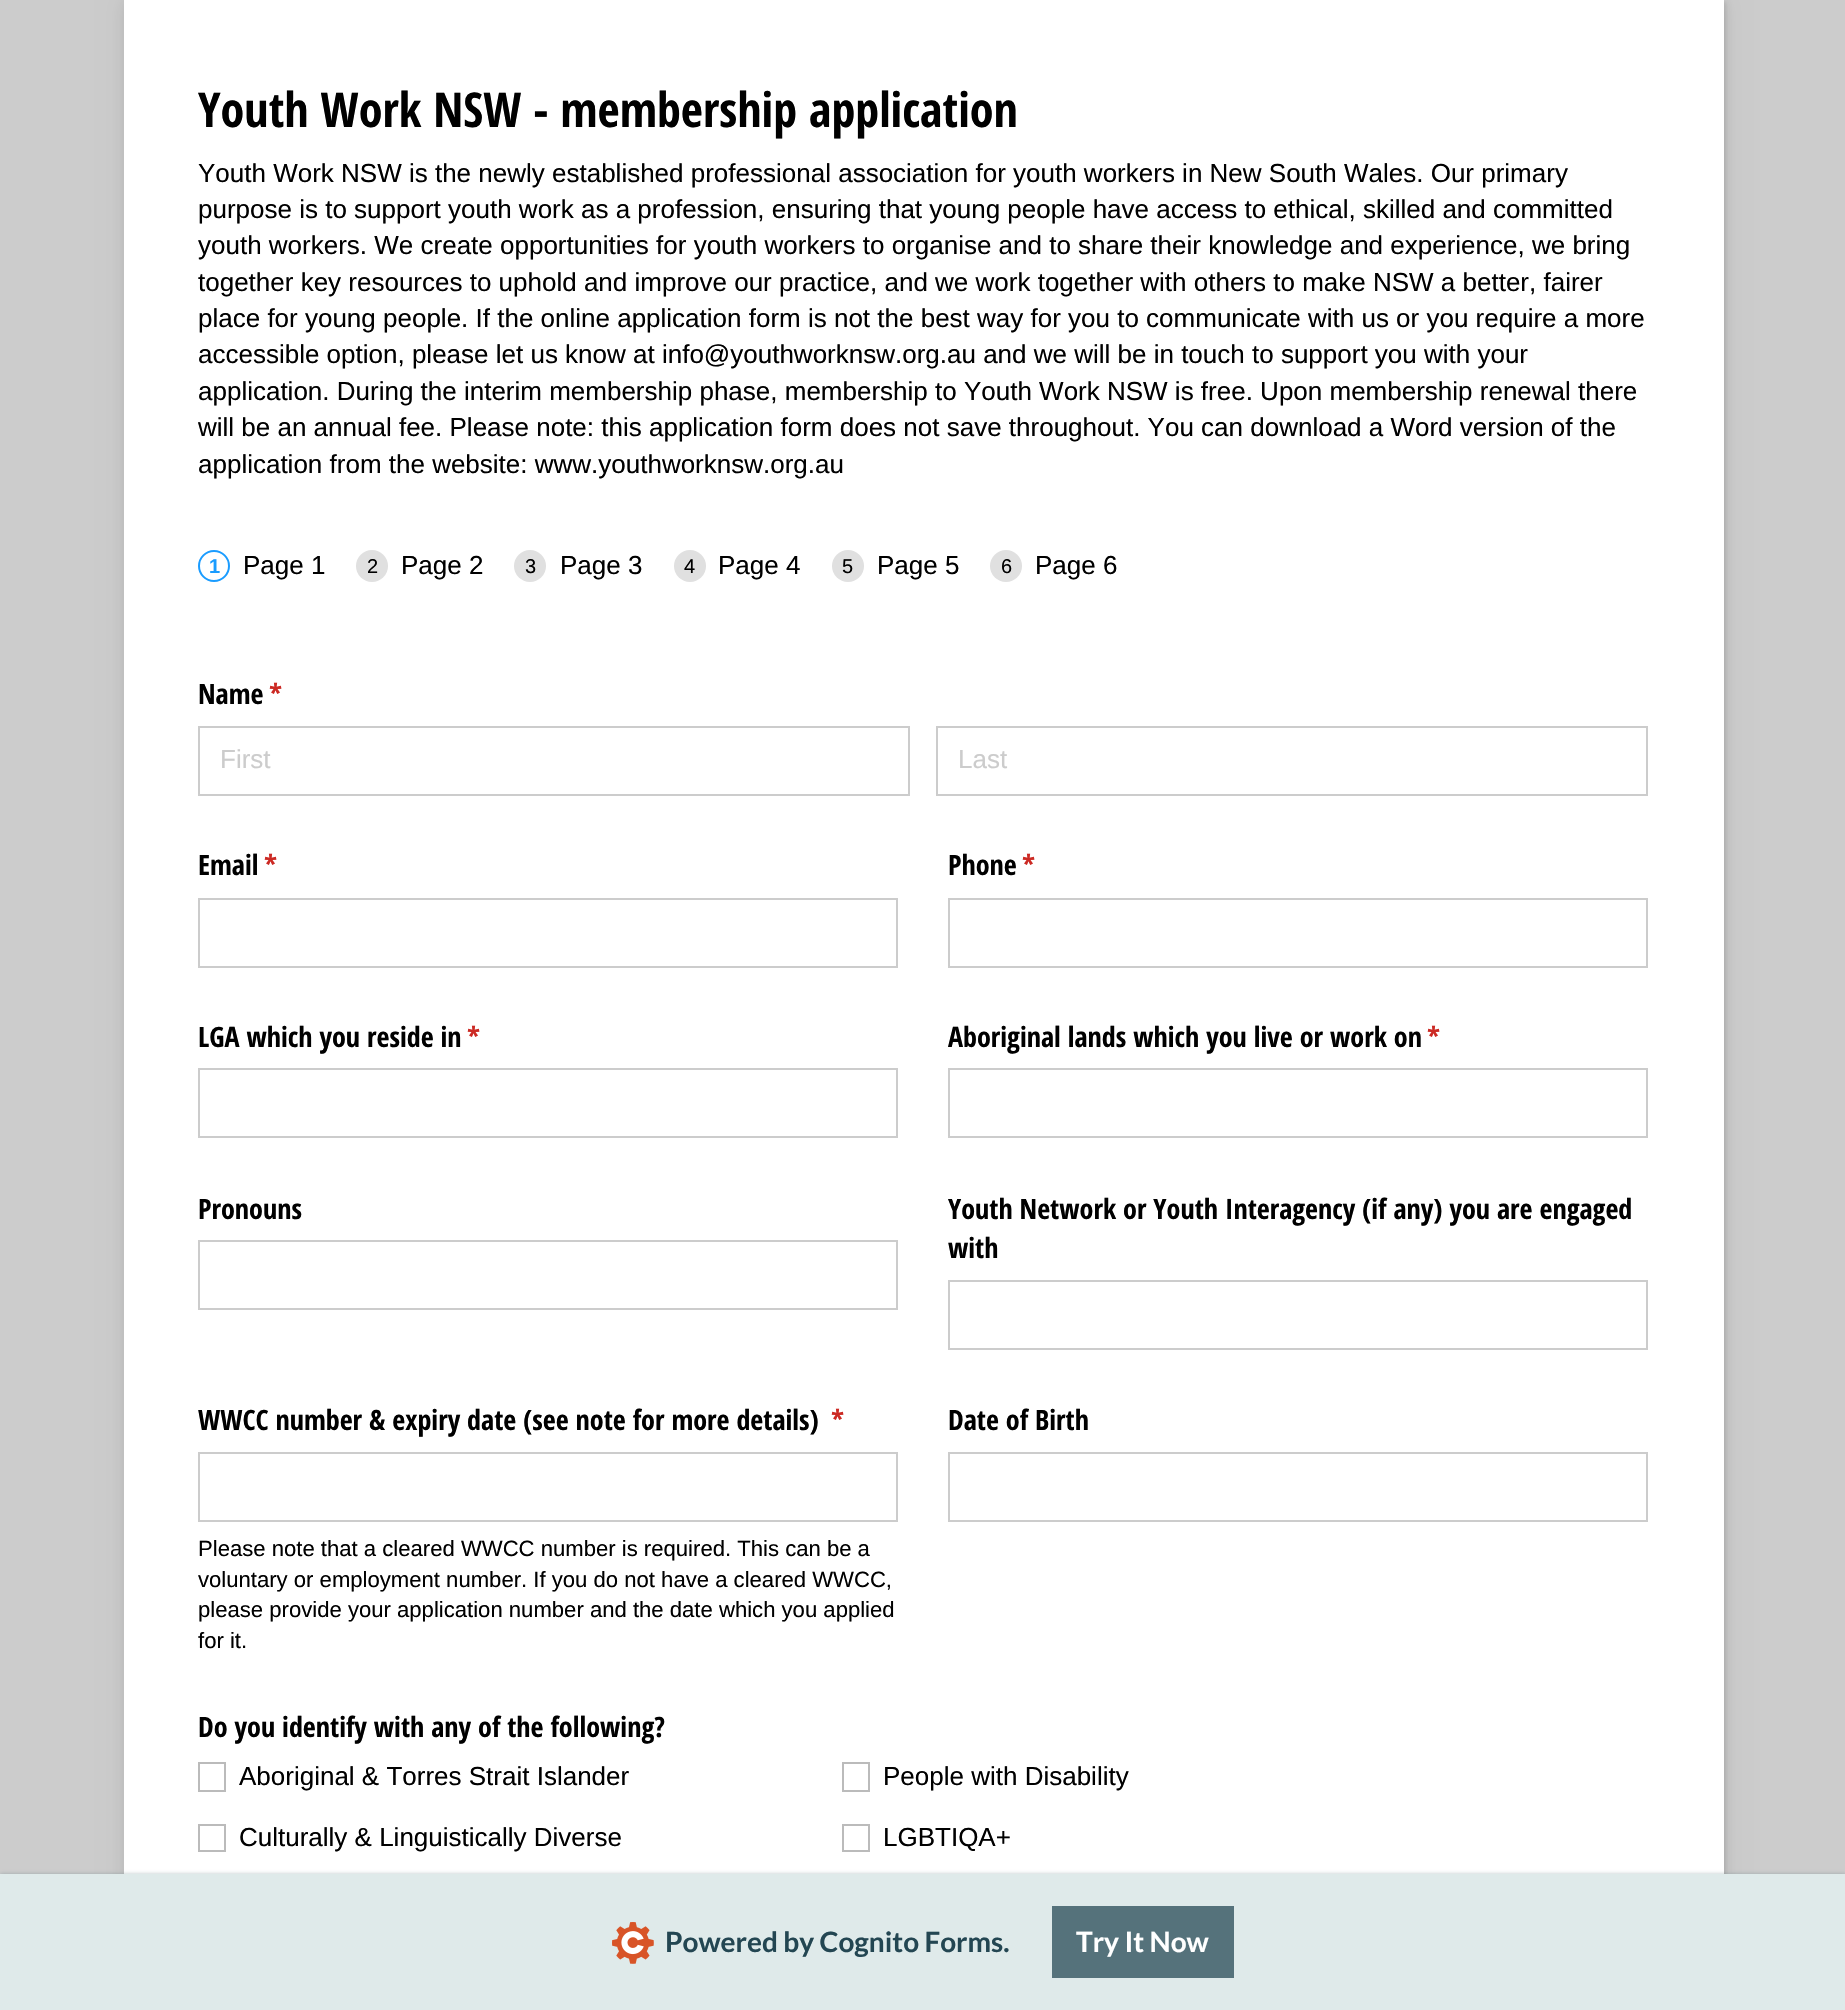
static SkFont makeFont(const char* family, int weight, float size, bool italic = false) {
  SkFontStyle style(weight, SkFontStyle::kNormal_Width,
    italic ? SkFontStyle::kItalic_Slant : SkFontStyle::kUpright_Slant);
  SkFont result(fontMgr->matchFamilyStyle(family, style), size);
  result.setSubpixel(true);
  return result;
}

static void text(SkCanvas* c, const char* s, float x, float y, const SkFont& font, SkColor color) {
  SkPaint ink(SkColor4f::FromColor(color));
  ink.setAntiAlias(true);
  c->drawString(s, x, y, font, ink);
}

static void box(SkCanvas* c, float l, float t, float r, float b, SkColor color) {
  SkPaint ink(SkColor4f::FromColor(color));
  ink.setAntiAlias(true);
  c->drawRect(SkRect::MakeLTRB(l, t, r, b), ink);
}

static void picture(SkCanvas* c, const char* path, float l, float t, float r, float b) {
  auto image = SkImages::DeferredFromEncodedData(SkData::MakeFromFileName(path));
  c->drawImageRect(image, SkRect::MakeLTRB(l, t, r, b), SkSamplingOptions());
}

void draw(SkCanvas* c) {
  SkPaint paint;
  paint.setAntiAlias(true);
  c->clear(0xffcccccc);
  paint.setColor(0x1a000000);
  paint.setMaskFilter(SkMaskFilter::MakeBlur(kNormal_SkBlurStyle, 2));
  c->drawRect(SkRect::MakeLTRB(126, 2, 1726, 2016), paint);
  paint.setMaskFilter(nullptr);
  paint.setMaskFilter(SkMaskFilter::MakeBlur(kNormal_SkBlurStyle, 10));
  c->drawRect(SkRect::MakeLTRB(124, 0, 1724, 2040), paint);
  paint.setMaskFilter(nullptr);
  box(c, 124, 0, 1724, 1874, 0xffffffff);
  SkFont face1 = makeFont("Open Sans Condensed", 700, 48.1f);
  text(c, "Youth Work NSW - membership application", 198, 127, face1, 0xff000000);
  SkFont face2 = makeFont("Liberation Sans", 400, 26);
  text(c, "Youth Work NSW is the newly established professional association for youth workers in New South Wales. Our primary", 198, 182, face2, 0xff000000);
  text(c, "purpose is to support youth work as a profession, ensuring that young people have access to ethical, skilled and committed", 198, 218, face2, 0xff000000);
  text(c, "youth workers. We create opportunities for youth workers to organise and to share their knowledge and experience, we bring", 198, 254, face2, 0xff000000);
  text(c, "together key resources to uphold and improve our practice, and we work together with others to make NSW a better, fairer", 198, 291, face2, 0xff000000);
  text(c, "place for young people. If the online application form is not the best way for you to communicate with us or you require a more", 198, 327, face2, 0xff000000);
  text(c, "accessible option, please let us know at info@youthworknsw.org.au and we will be in touch to support you with your", 198, 363, face2, 0xff000000);
  text(c, "application. During the interim membership phase, membership to Youth Work NSW is free. Upon membership renewal there", 198, 400, face2, 0xff000000);
  text(c, "will be an annual fee. Please note: this application form does not save throughout. You can download a Word version of the", 198, 436, face2, 0xff000000);
  text(c, "application from the website: www.youthworknsw.org.au", 198, 473, face2, 0xff000000);
  paint.setStyle(SkPaint::kStroke_Style);
  paint.setStrokeWidth(2);
  paint.setColor(0xff1a9cff);
  c->drawCircle(214, 566, 15, paint);
  SkFont face3 = makeFont("Liberation Sans", 700, 20);
  text(c, "1", 209, 573, face3, 0xff1a9cff);
  text(c, "Page 1", 243, 574, face2, 0xff000000);
  paint.setStyle(SkPaint::kFill_Style);
  paint.setColor(0xffe0e0e0);
  c->drawCircle(372, 566, 16, paint);
  SkFont face4 = makeFont("Liberation Sans", 400, 20);
  text(c, "2", 367, 573, face4, 0xff000000);
  text(c, "Page 2", 401, 574, face2, 0xff000000);
  c->drawCircle(530, 566, 16, paint);
  text(c, "3", 525, 573, face4, 0xff000000);
  text(c, "Page 3", 560, 574, face2, 0xff000000);
  c->drawCircle(690, 566, 16, paint);
  text(c, "4", 684, 573, face4, 0xff000000);
  text(c, "Page 4", 718, 574, face2, 0xff000000);
  c->drawCircle(848, 566, 16, paint);
  text(c, "5", 842, 573, face4, 0xff000000);
  text(c, "Page 5", 877, 574, face2, 0xff000000);
  c->drawCircle(1006, 566, 16, paint);
  text(c, "6", 1001, 573, face4, 0xff000000);
  text(c, "Page 6", 1035, 574, face2, 0xff000000);
  SkFont face5 = makeFont("Open Sans Condensed", 700, 28.1f);
  text(c, "Name", 198, 704, face5, 0xff000000);
  text(c, "*", 269, 704, face5, 0xffcc2a24);
  paint.setStyle(SkPaint::kStroke_Style);
  paint.setColor(0xffcccccc);
  c->drawRect(SkRect::MakeLTRB(199, 727, 909, 795), paint);
  text(c, "First", 220, 768, face2, 0xffcccccc);
  c->drawRect(SkRect::MakeLTRB(937, 727, 1647, 795), paint);
  text(c, "Last", 958, 768, face2, 0xffcccccc);
  text(c, "Email", 198, 875, face5, 0xff000000);
  text(c, "*", 264, 875, face5, 0xffcc2a24);
  c->drawRect(SkRect::MakeLTRB(199, 899, 897, 967), paint);
  text(c, "Phone", 948, 875, face5, 0xff000000);
  text(c, "*", 1022, 875, face5, 0xffcc2a24);
  c->drawRect(SkRect::MakeLTRB(949, 899, 1647, 967), paint);
  text(c, "LGA which you reside in", 198, 1047, face5, 0xff000000);
  text(c, "*", 467, 1047, face5, 0xffcc2a24);
  c->drawRect(SkRect::MakeLTRB(199, 1069, 897, 1137), paint);
  text(c, "Aboriginal lands which you live or work on", 948, 1047, face5, 0xff000000);
  text(c, "*", 1427, 1047, face5, 0xffcc2a24);
  c->drawRect(SkRect::MakeLTRB(949, 1069, 1647, 1137), paint);
  text(c, "Pronouns", 198, 1219, face5, 0xff000000);
  c->drawRect(SkRect::MakeLTRB(199, 1241, 897, 1309), paint);
  text(c, "Youth Network or Youth Interagency (if any) you are engaged", 948, 1219, face5, 0xff000000);
  text(c, "with", 948, 1258, face5, 0xff000000);
  c->drawRect(SkRect::MakeLTRB(949, 1281, 1647, 1349), paint);
  text(c, "WWCC number & expiry date (see note for more details)", 198, 1430, face5, 0xff000000);
  text(c, "*", 831, 1430, face5, 0xffcc2a24);
  c->drawRect(SkRect::MakeLTRB(199, 1453, 897, 1521), paint);
  SkFont face6 = makeFont("Liberation Sans", 400, 22.1f);
  text(c, "Please note that a cleared WWCC number is required. This can be a", 198, 1556, face6, 0xff000000);
  text(c, "voluntary or employment number. If you do not have a cleared WWCC,", 198, 1587, face6, 0xff000000);
  text(c, "please provide your application number and the date which you applied", 198, 1617, face6, 0xff000000);
  text(c, "for it.", 198, 1648, face6, 0xff000000);
  text(c, "Date of Birth", 948, 1430, face5, 0xff000000);
  c->drawRect(SkRect::MakeLTRB(949, 1453, 1647, 1521), paint);
  text(c, "Do you identify with any of the following?", 198, 1737, face5, 0xff000000);
  paint.setColor(0xffbbbbbb);
  c->drawRect(SkRect::MakeLTRB(199, 1763, 225, 1791), paint);
  text(c, "Aboriginal & Torres Strait Islander", 239, 1785, face2, 0xff000000);
  c->drawRect(SkRect::MakeLTRB(843, 1763, 869, 1791), paint);
  text(c, "People with Disability", 883, 1785, face2, 0xff000000);
  c->drawRect(SkRect::MakeLTRB(199, 1825, 225, 1851), paint);
  text(c, "Culturally & Linguistically Diverse", 239, 1846, face2, 0xff000000);
  c->drawRect(SkRect::MakeLTRB(843, 1825, 869, 1851), paint);
  text(c, "LGBTIQA+", 883, 1846, face2, 0xff000000);
  paint.setStyle(SkPaint::kFill_Style);
  paint.setColor(0x6655727b);
  paint.setMaskFilter(SkMaskFilter::MakeBlur(kNormal_SkBlurStyle, 2));
  c->drawRect(SkRect::MakeLTRB(0, 1874, 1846, 2010), paint);
  paint.setMaskFilter(nullptr);
  box(c, 0, 1874, 1845, 2010, 0xffdfeaea);
  picture(c, "img_01.png", 612, 1922, 654, 1964);
  SkFont face7 = makeFont("Lato", 700, 28);
  text(c, "Powered by Cognito Forms.", 665, 1952, face7, 0xff234652);
  box(c, 1052, 1906, 1234, 1978, 0xff55727b);
  text(c, "Try It Now", 1076, 1952, face7, 0xffffffff);
}
